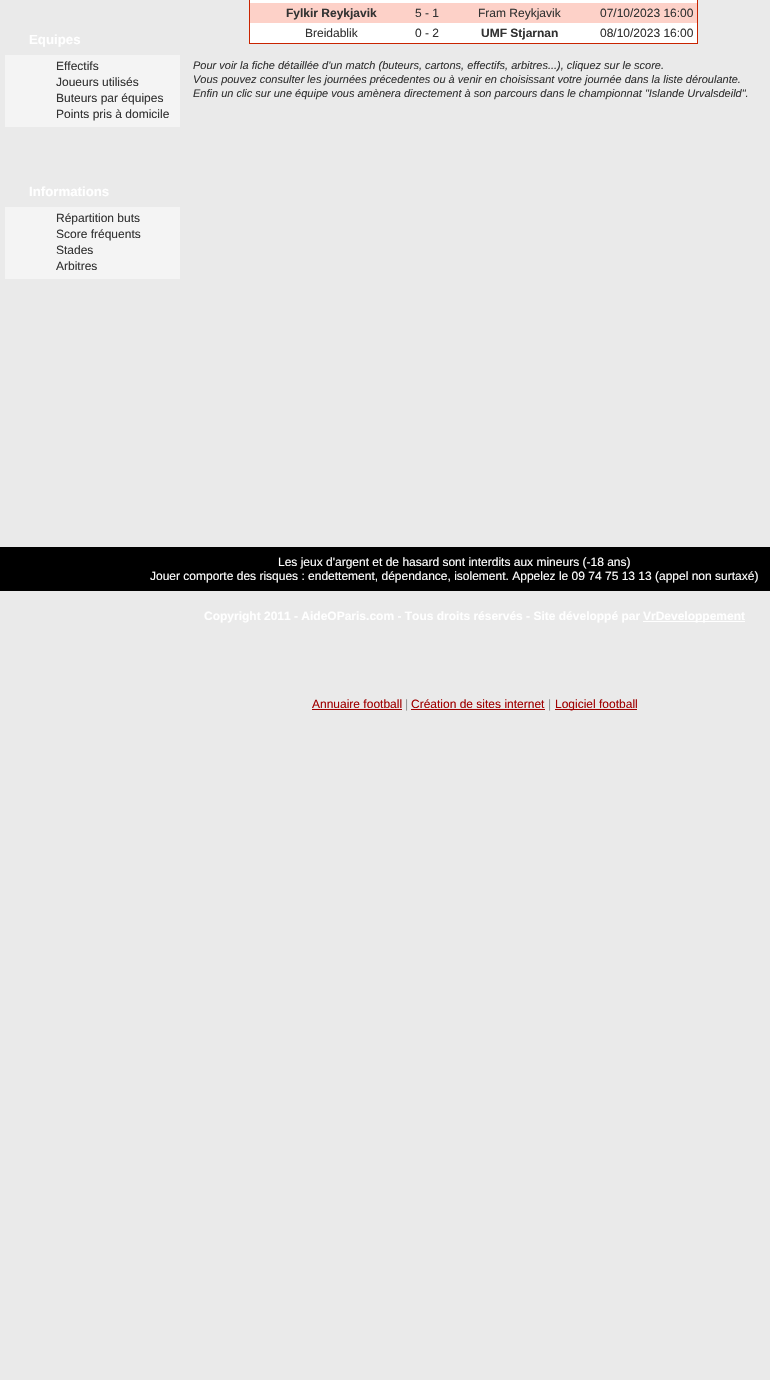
static SkFont makeFont(const char* family, int weight, float size, bool italic = false) {
  SkFontStyle style(weight, SkFontStyle::kNormal_Width,
    italic ? SkFontStyle::kItalic_Slant : SkFontStyle::kUpright_Slant);
  SkFont result(fontMgr->matchFamilyStyle(family, style), size);
  result.setSubpixel(true);
  return result;
}

static void text(SkCanvas* c, const char* s, float x, float y, const SkFont& font, SkColor color) {
  SkPaint ink(SkColor4f::FromColor(color));
  ink.setAntiAlias(true);
  c->drawString(s, x, y, font, ink);
}

static void box(SkCanvas* c, float l, float t, float r, float b, SkColor color) {
  SkPaint ink(SkColor4f::FromColor(color));
  ink.setAntiAlias(true);
  c->drawRect(SkRect::MakeLTRB(l, t, r, b), ink);
}

void draw(SkCanvas* c) {
  SkPaint paint;
  paint.setAntiAlias(true);
  c->clear(0xffeaeaea);
  SkFont face1 = makeFont("Liberation Sans", 700, 13.25f);
  text(c, "Equipes", 29, 44, face1, 0xffffffff);
  box(c, 5, 55, 180, 127, 0xfff4f4f4);
  SkFont face2 = makeFont("Liberation Sans", 400, 12);
  text(c, "Effectifs", 56, 70, face2, 0xff333333);
  text(c, "Joueurs utilisés", 56, 86, face2, 0xff333333);
  text(c, "Buteurs par équipes", 56, 102, face2, 0xff333333);
  text(c, "Points pris à domicile", 56, 118, face2, 0xff333333);
  text(c, "Informations", 29, 196, face1, 0xffffffff);
  box(c, 5, 207, 180, 279, 0xfff4f4f4);
  text(c, "Répartition buts", 56, 222, face2, 0xff333333);
  text(c, "Score fréquents", 56, 238, face2, 0xff333333);
  text(c, "Stades", 56, 254, face2, 0xff333333);
  text(c, "Arbitres", 56, 270, face2, 0xff333333);
  paint.setStyle(SkPaint::kStroke_Style);
  paint.setStrokeWidth(1);
  paint.setColor(0xffc92400);
  c->drawRect(SkRect::MakeLTRB(249.5f, -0.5f, 697.5f, 43.5f), paint);
  box(c, 250, 0, 697, 3, 0xffffffff);
  box(c, 250, 3, 697, 23, 0xfffdd1c8);
  SkFont face3 = makeFont("Liberation Sans", 700, 12);
  text(c, "Fylkir Reykjavik", 286, 17, face3, 0xff333333);
  text(c, "5 - 1", 415, 17, face2, 0xff333333);
  text(c, "Fram Reykjavik", 478, 17, face2, 0xff333333);
  text(c, "07/10/2023 16:00", 600, 17, face2, 0xff333333);
  box(c, 250, 23, 697, 43, 0xffffffff);
  text(c, "Breidablik", 305, 37, face2, 0xff333333);
  text(c, "0 - 2", 415, 37, face2, 0xff333333);
  text(c, "UMF Stjarnan", 481, 37, face3, 0xff333333);
  text(c, "08/10/2023 16:00", 600, 37, face2, 0xff333333);
  SkFont face4 = makeFont("Liberation Sans", 400, 11, true);
  text(c, "Pour voir la fiche détaillée d'un match (buteurs, cartons, effectifs, arbitres...), cliquez sur le score.", 193, 69, face4, 0xff333333);
  text(c, "Vous pouvez consulter les journées précedentes ou à venir en choisissant votre journée dans la liste déroulante.", 193, 83, face4, 0xff333333);
  text(c, "Enfin un clic sur une équipe vous amènera directement à son parcours dans le championnat \"Islande Urvalsdeild\".", 193, 97, face4, 0xff333333);
  box(c, 0, 547, 770, 591, 0xff000000);
  text(c, "Les jeux d'argent et de hasard sont interdits aux mineurs (-18 ans)", 278, 566, face2, 0xffffffff);
  text(c, "Jouer comporte des risques : endettement, dépendance, isolement. Appelez le 09 74 75 13 13 (appel non surtaxé)", 150, 580, face2, 0xffffffff);
  text(c, "Copyright 2011 - AideOParis.com - Tous droits réservés - Site développé par", 204, 620, face3, 0xffffffff);
  box(c, 643, 621, 745, 622, 0xffffffff);
  text(c, "VrDeveloppement", 643, 620, face3, 0xffffffff);
  text(c, "Annuaire football", 312, 708, face2, 0xffa00000);
  box(c, 312, 709, 402, 710, 0xffa00000);
  text(c, "|", 405, 708, face2, 0xff929292);
  text(c, "Création de sites internet", 411, 708, face2, 0xffa00000);
  box(c, 411, 709, 545, 710, 0xffa00000);
  text(c, "|", 548, 708, face2, 0xff929292);
  box(c, 555, 709, 637, 710, 0xffa00000);
  text(c, "Logiciel football", 555, 708, face2, 0xffa00000);
}
